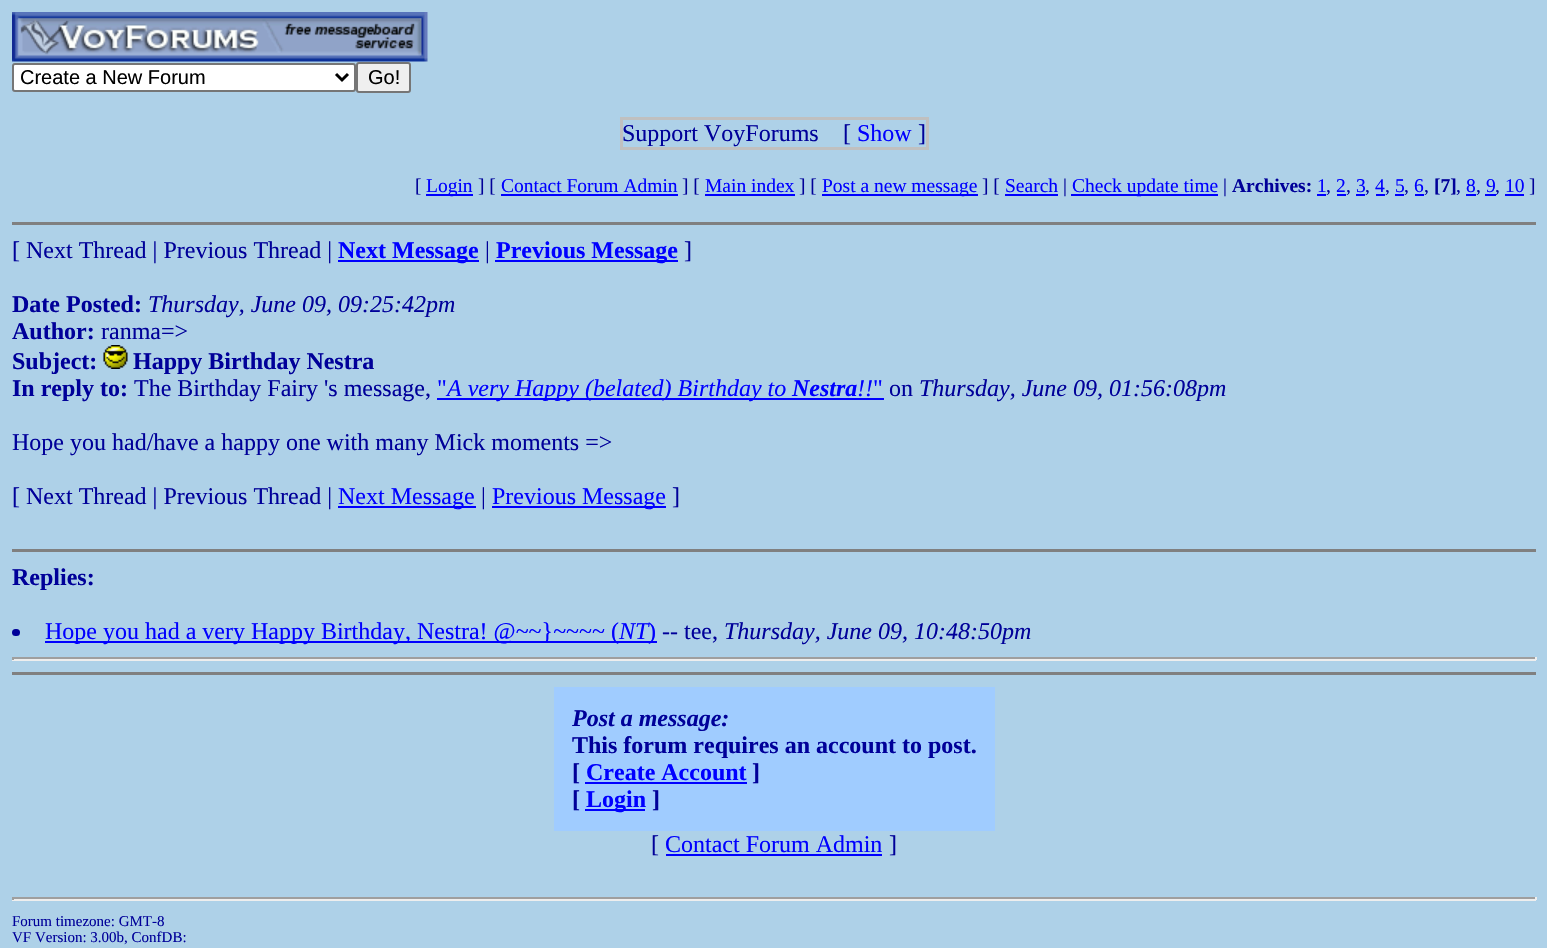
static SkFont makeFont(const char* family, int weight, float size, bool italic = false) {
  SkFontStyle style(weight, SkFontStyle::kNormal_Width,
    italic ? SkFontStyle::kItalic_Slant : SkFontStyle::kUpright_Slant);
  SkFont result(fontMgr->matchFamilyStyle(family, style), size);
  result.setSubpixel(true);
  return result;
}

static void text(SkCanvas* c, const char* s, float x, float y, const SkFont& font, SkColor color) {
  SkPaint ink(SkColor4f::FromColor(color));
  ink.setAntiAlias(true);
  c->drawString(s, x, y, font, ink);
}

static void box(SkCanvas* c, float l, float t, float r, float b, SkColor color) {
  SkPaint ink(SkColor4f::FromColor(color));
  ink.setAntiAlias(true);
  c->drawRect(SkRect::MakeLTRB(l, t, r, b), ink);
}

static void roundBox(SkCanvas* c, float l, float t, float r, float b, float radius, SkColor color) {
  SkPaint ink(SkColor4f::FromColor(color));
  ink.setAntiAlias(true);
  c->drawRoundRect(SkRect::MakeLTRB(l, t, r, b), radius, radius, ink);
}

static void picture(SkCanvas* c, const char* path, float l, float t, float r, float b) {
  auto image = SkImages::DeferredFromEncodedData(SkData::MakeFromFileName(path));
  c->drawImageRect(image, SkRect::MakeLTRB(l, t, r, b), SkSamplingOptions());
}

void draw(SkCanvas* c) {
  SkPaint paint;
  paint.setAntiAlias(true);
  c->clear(0xffaed1e8);
  picture(c, "img_01.png", 12, 12, 428, 62);
  paint.setColor(0xffffffff);
  c->drawRoundRect(SkRect::MakeLTRB(13, 64, 355, 91), 2, 2, paint);
  paint.setStyle(SkPaint::kStroke_Style);
  paint.setStrokeWidth(2);
  paint.setColor(0xff767676);
  c->drawRoundRect(SkRect::MakeLTRB(13, 64, 355, 91), 2, 2, paint);
  paint.setStrokeWidth(3);
  paint.setColor(0xff000000);
  c->drawPath(SkPathBuilder().moveTo(336, 74).lineTo(342, 80).lineTo(348, 74).detach(), paint);
  SkFont face1 = makeFont("Liberation Sans", 400, 20);
  text(c, "Create a New Forum", 20, 84, face1, 0xff000000);
  paint.setStyle(SkPaint::kFill_Style);
  paint.setColor(0xffefefef);
  c->drawRoundRect(SkRect::MakeLTRB(357, 63, 410, 92), 2, 2, paint);
  paint.setStyle(SkPaint::kStroke_Style);
  paint.setStrokeWidth(2);
  paint.setColor(0xff767676);
  c->drawRoundRect(SkRect::MakeLTRB(357, 63, 410, 92), 2, 2, paint);
  text(c, "Go!", 368, 84, face1, 0xff000000);
  paint.setStrokeWidth(3);
  paint.setColor(0xffc0c0c0);
  c->drawRect(SkRect::MakeLTRB(621.5f, 118.5f, 927.5f, 148.5f), paint);
  SkFont face2 = makeFont("Liberation Serif", 400, 24);
  text(c, "Support VoyForums", 622, 141, face2, 0xff000099);
  text(c, "[", 843, 141, face2, 0xff000099);
  text(c, "Show", 857, 141, face2, 0xff0000ff);
  text(c, "]", 918, 141, face2, 0xff000099);
  SkFont face3 = makeFont("Liberation Serif", 400, 19.5f);
  text(c, "[", 415, 192, face3, 0xff000099);
  box(c, 426, 194, 473, 196, 0xff0000ff);
  text(c, "Login", 426, 192, face3, 0xff0000ff);
  text(c, "] [", 478, 192, face3, 0xff000099);
  text(c, "Contact Forum Admin", 501, 192, face3, 0xff0000ff);
  box(c, 501, 194, 678, 196, 0xff0000ff);
  text(c, "] [", 682, 192, face3, 0xff000099);
  text(c, "Main index", 705, 192, face3, 0xff0000ff);
  box(c, 705, 194, 795, 196, 0xff0000ff);
  text(c, "] [", 799, 192, face3, 0xff000099);
  box(c, 822, 194, 978, 196, 0xff0000ff);
  text(c, "Post a new message", 822, 192, face3, 0xff0000ff);
  text(c, "] [", 982, 192, face3, 0xff000099);
  text(c, "Search", 1005, 192, face3, 0xff0000ff);
  box(c, 1005, 194, 1058, 196, 0xff0000ff);
  text(c, "|", 1063, 192, face3, 0xff000099);
  box(c, 1071, 194, 1218, 196, 0xff0000ff);
  text(c, "Check update time", 1072, 192, face3, 0xff0000ff);
  text(c, "|", 1223, 192, face3, 0xff000099);
  SkFont face4 = makeFont("Liberation Serif", 700, 19.5f);
  text(c, "Archives:", 1232, 192, face4, 0xff000099);
  text(c, "1", 1317, 192, face3, 0xff0000ff);
  text(c, ",", 1326, 192, face3, 0xff000099);
  box(c, 1317, 194, 1326, 196, 0xff0000ff);
  text(c, "2", 1336, 192, face3, 0xff0000ff);
  text(c, ",", 1346, 192, face3, 0xff000099);
  box(c, 1337, 194, 1346, 196, 0xff0000ff);
  text(c, "3", 1356, 192, face3, 0xff0000ff);
  text(c, ",", 1365, 192, face3, 0xff000099);
  box(c, 1356, 194, 1365, 196, 0xff0000ff);
  text(c, "4", 1375, 192, face3, 0xff0000ff);
  text(c, ",", 1385, 192, face3, 0xff000099);
  box(c, 1376, 194, 1385, 196, 0xff0000ff);
  text(c, "5", 1395, 192, face3, 0xff0000ff);
  text(c, ",", 1404, 192, face3, 0xff000099);
  box(c, 1395, 194, 1404, 196, 0xff0000ff);
  text(c, "6", 1414, 192, face3, 0xff0000ff);
  text(c, ",", 1424, 192, face3, 0xff000099);
  box(c, 1415, 194, 1424, 196, 0xff0000ff);
  text(c, "[7]", 1434, 192, face4, 0xff000099);
  text(c, ",", 1456, 192, face3, 0xff000099);
  text(c, "8", 1466, 192, face3, 0xff0000ff);
  text(c, ",", 1476, 192, face3, 0xff000099);
  box(c, 1466, 194, 1476, 196, 0xff0000ff);
  text(c, "9", 1486, 192, face3, 0xff0000ff);
  text(c, ",", 1495, 192, face3, 0xff000099);
  box(c, 1485, 194, 1496, 196, 0xff0000ff);
  box(c, 1505, 194, 1524, 196, 0xff0000ff);
  text(c, "10", 1505, 192, face3, 0xff0000ff);
  text(c, "]", 1529, 192, face3, 0xff000099);
  box(c, 12, 222, 1536, 225, 0xff808080);
  text(c, "[ Next Thread | Previous Thread |", 12, 258, face2, 0xff000099);
  box(c, 338, 260, 479, 262, 0xff0000ff);
  SkFont face5 = makeFont("Liberation Serif", 700, 24);
  text(c, "Next Message", 338, 258, face5, 0xff0000ff);
  text(c, "|", 485, 258, face2, 0xff000099);
  box(c, 495, 260, 678, 262, 0xff0000ff);
  text(c, "Previous Message", 496, 258, face5, 0xff0000ff);
  text(c, "]", 684, 258, face2, 0xff000099);
  text(c, "Date Posted:", 12, 312, face5, 0xff000099);
  SkFont face6 = makeFont("Liberation Serif", 400, 24, true);
  text(c, "Thursday, June 09, 09:25:42pm", 148, 312, face6, 0xff000099);
  text(c, "Author:", 12, 339, face5, 0xff000099);
  text(c, "ranma=>", 101, 339, face2, 0xff000099);
  text(c, "Subject:", 12, 369, face5, 0xff000099);
  picture(c, "img_02.png", 103, 345, 128, 369);
  text(c, "Happy Birthday Nestra", 133, 369, face5, 0xff000099);
  text(c, "In reply to:", 12, 396, face5, 0xff000099);
  text(c, "The Birthday Fairy 's message,", 134, 396, face2, 0xff000099);
  text(c, "\"", 437, 396, face2, 0xff0000ff);
  box(c, 437, 398, 884, 400, 0xff0000ff);
  text(c, "A very Happy (belated) Birthday to", 447, 396, face6, 0xff0000ff);
  SkFont face7 = makeFont("Liberation Serif", 700, 24, true);
  text(c, "Nestra", 792, 396, face7, 0xff0000ff);
  text(c, "!!", 857, 396, face6, 0xff0000ff);
  text(c, "\"", 873, 396, face2, 0xff0000ff);
  text(c, "Thursday, June 09, 01:56:08pm", 919, 396, face6, 0xff000099);
  text(c, "on", 889, 396, face2, 0xff000099);
  text(c, "Hope you had/have a happy one with many Mick moments =>", 12, 450, face2, 0xff000099);
  text(c, "[ Next Thread | Previous Thread |", 12, 504, face2, 0xff000099);
  box(c, 338, 506, 476, 508, 0xff0000ff);
  text(c, "Next Message", 338, 504, face2, 0xff0000ff);
  text(c, "|", 481, 504, face2, 0xff000099);
  box(c, 492, 506, 666, 508, 0xff0000ff);
  text(c, "Previous Message", 492, 504, face2, 0xff0000ff);
  text(c, "]", 672, 504, face2, 0xff000099);
  box(c, 12, 549, 1536, 552, 0xff808080);
  text(c, "Replies:", 12, 585, face5, 0xff000099);
  roundBox(c, 12, 629, 20, 636, 3.5f, 0xff000099);
  box(c, 45, 641, 657, 643, 0xff0000ff);
  text(c, "Hope you had a very Happy Birthday, Nestra! @~~}~~~~ (", 45, 639, face2, 0xff0000ff);
  text(c, "NT", 619, 639, face6, 0xff0000ff);
  text(c, ")", 648, 639, face2, 0xff0000ff);
  text(c, "-- tee,", 662, 639, face2, 0xff000099);
  text(c, "Thursday, June 09, 10:48:50pm", 724, 639, face6, 0xff000099);
  box(c, 12, 657, 1536, 659, 0xff9f9f9f);
  box(c, 1535, 657, 1537, 660, 0xffeeeeee);
  box(c, 12, 659, 1536, 661, 0xffeeeeee);
  box(c, 12, 657, 14, 660, 0xff9f9f9f);
  box(c, 12, 672, 1536, 675, 0xff808080);
  box(c, 554, 687, 995, 831, 0xffa0ccff);
  text(c, "Post a message:", 572, 726, face7, 0xff000099);
  text(c, "This forum requires an account to post.", 572, 753, face5, 0xff000099);
  text(c, "[", 572, 780, face5, 0xff000099);
  text(c, "Create Account", 586, 780, face5, 0xff0000ff);
  box(c, 585, 782, 747, 784, 0xff0000ff);
  text(c, "]", 752, 780, face5, 0xff000099);
  text(c, "[", 572, 807, face5, 0xff000099);
  box(c, 585, 809, 645, 811, 0xff0000ff);
  text(c, "Login", 586, 807, face5, 0xff0000ff);
  text(c, "]", 652, 807, face5, 0xff000099);
  text(c, "[", 651, 852, face2, 0xff000099);
  text(c, "Contact Forum Admin", 665, 852, face2, 0xff0000ff);
  box(c, 666, 854, 882, 856, 0xff0000ff);
  text(c, "]", 889, 852, face2, 0xff000099);
  box(c, 12, 897, 1536, 899, 0xff9f9f9f);
  box(c, 1535, 897, 1537, 900, 0xffeeeeee);
  box(c, 12, 899, 1536, 901, 0xffeeeeee);
  box(c, 12, 897, 14, 900, 0xff9f9f9f);
  SkFont face8 = makeFont("Liberation Serif", 400, 15);
  text(c, "Forum timezone: GMT-8", 12, 926, face8, 0xff000099);
  text(c, "VF Version: 3.00b, ConfDB:", 12, 942, face8, 0xff000099);
}
